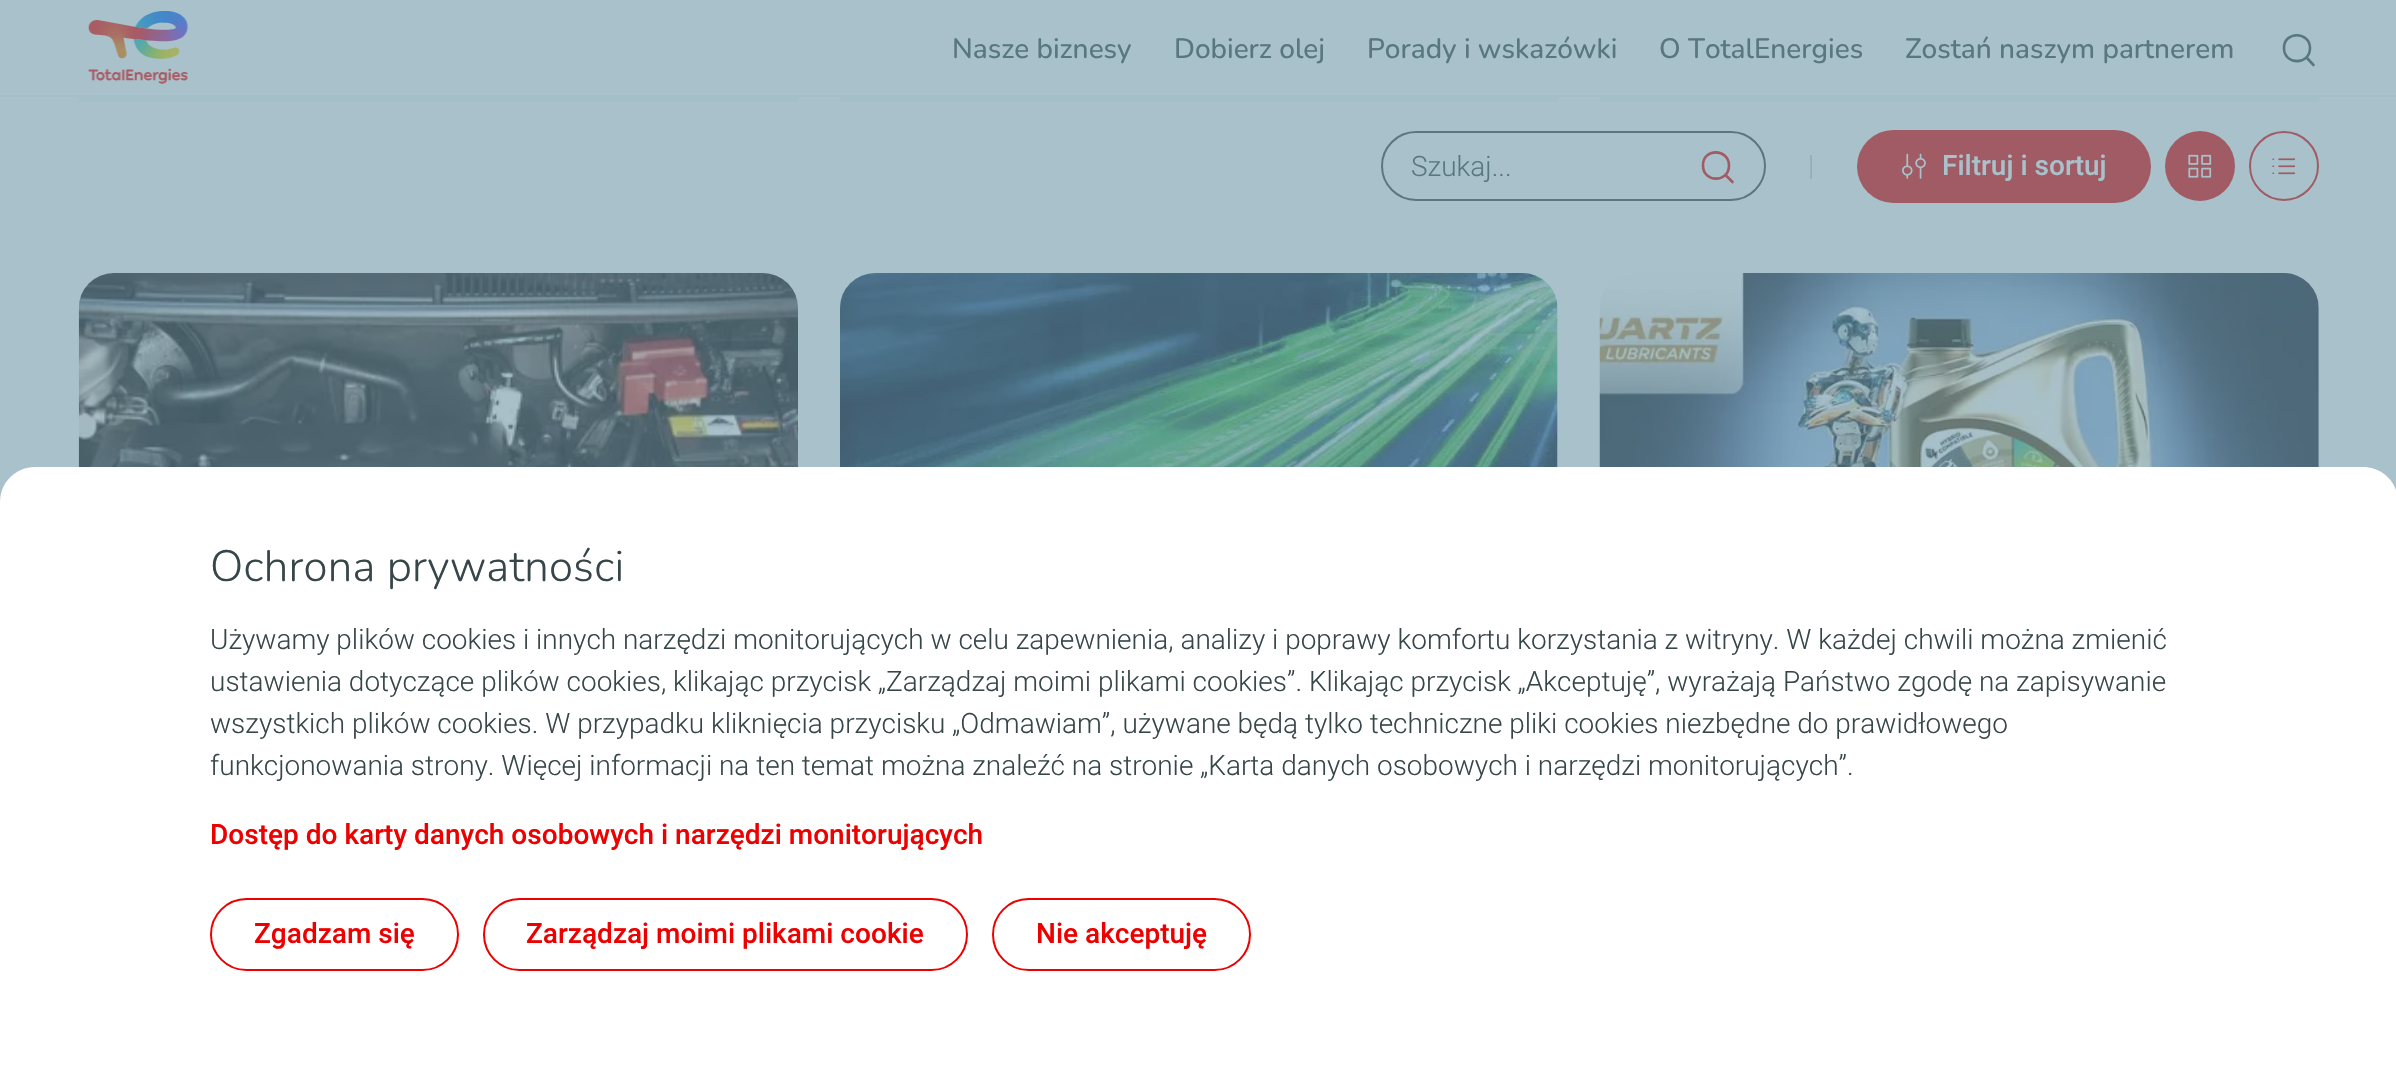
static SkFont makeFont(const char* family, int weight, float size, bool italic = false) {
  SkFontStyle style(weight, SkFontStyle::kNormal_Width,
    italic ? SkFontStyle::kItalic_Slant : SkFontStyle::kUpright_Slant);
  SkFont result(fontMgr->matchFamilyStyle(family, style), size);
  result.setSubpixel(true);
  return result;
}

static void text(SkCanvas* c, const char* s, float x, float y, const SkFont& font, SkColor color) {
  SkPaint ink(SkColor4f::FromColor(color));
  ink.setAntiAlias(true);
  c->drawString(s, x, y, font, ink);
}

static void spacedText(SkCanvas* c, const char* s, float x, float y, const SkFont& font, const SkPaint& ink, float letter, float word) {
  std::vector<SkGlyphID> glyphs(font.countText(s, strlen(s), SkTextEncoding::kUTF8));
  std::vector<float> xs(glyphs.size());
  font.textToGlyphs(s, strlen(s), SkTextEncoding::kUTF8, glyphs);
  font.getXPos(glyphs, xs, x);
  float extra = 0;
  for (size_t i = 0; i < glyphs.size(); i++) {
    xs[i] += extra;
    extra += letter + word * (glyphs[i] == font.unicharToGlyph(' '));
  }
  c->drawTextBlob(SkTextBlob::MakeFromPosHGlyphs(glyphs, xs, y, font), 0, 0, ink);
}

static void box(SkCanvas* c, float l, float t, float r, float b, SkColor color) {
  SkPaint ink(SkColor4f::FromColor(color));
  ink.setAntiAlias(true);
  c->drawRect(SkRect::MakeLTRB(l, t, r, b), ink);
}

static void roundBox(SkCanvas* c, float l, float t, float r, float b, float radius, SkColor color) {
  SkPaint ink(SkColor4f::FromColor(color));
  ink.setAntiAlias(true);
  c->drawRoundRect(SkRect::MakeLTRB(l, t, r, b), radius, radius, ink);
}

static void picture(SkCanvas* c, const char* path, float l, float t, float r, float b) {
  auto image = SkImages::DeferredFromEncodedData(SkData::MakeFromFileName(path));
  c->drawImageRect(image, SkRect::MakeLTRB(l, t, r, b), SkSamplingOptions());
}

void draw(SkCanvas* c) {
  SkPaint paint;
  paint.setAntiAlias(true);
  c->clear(0xffa9c1ca);
  box(c, 0, 95, 2396, 97, 0xffa5bfc9);
  picture(c, "img_01.png", 87, 11, 188, 84);
  SkFont face1 = makeFont("Nunito", 500, 28);
  text(c, "Nasze biznesy", 952, 58, face1, 0xff597781);
  text(c, "Dobierz olej", 1174, 58, face1, 0xff597781);
  text(c, "Porady i wskazówki", 1367, 58, face1, 0xff597781);
  text(c, "O TotalEnergies", 1659, 58, face1, 0xff597781);
  text(c, "Zostań naszym partnerem", 1905, 58, face1, 0xff597781);
  paint.setStyle(SkPaint::kStroke_Style);
  paint.setStrokeWidth(2.6f);
  paint.setStrokeCap(SkPaint::kRound_Cap);
  paint.setStrokeJoin(SkPaint::kRound_Join);
  paint.setColor(0xff597781);
  c->drawPath(SkPathBuilder().moveTo(2313.5f, 65).lineTo(2306.5f, 57.5f).moveTo(2310, 48).cubicTo(2310, 65.5f, 2284, 65.5f, 2284, 48).cubicTo(2283.5f, 31, 2310, 31, 2310, 48).close().detach(), paint);
  box(c, 79, 97, 798, 102, 0xffa5bfc9);
  box(c, 840, 97, 1558, 102, 0xffa5bfc9);
  box(c, 1600, 97, 2319, 102, 0xffa5bfc9);
  roundBox(c, 79, 273, 798, 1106, 35, 0xffa5bfc9);
  picture(c, "img_02.png", 78, 273, 798, 467);
  roundBox(c, 840, 273, 1558, 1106, 35, 0xffa5bfc9);
  picture(c, "img_03.png", 840, 273, 1558, 467);
  roundBox(c, 1600, 273, 2319, 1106, 35, 0xffa5bfc9);
  picture(c, "img_04.png", 1599, 273, 2319, 467);
  paint.setStrokeWidth(2);
  paint.setStrokeCap(SkPaint::kButt_Cap);
  paint.setStrokeJoin(SkPaint::kMiter_Join);
  c->drawRoundRect(SkRect::MakeLTRB(1382, 132, 1765, 200), 34, 34, paint);
  SkFont face2 = makeFont("Roboto", 300, 28);
  text(c, "Szukaj...", 1411, 176, face2, 0xff597781);
  paint.setStrokeWidth(2.6f);
  paint.setStrokeCap(SkPaint::kRound_Cap);
  paint.setStrokeJoin(SkPaint::kRound_Join);
  paint.setColor(0xffa05b64);
  c->drawPath(SkPathBuilder().moveTo(1732.5f, 182).lineTo(1725.5f, 175).moveTo(1729, 165.5f).cubicTo(1729, 183, 1703, 183, 1703, 165.5f).cubicTo(1702.5f, 148, 1729, 148, 1729, 165.5f).close().detach(), paint);
  text(c, "|", 1808, 175, face2, 0xff8cacb9);
  roundBox(c, 1857, 130, 2151, 203, 36.5f, 0xffa05b64);
  picture(c, "img_05.png", 1902, 153, 1926, 179);
  SkFont face3 = makeFont("Roboto", 500, 28);
  text(c, "Filtruj i sortuj", 1942, 175, face3, 0xffa9c1ca);
  paint.setStyle(SkPaint::kFill_Style);
  c->drawCircle(2200, 166, 35, paint);
  picture(c, "img_06.png", 2188, 154, 2212, 178);
  paint.setStyle(SkPaint::kStroke_Style);
  paint.setStrokeWidth(2);
  paint.setStrokeCap(SkPaint::kButt_Cap);
  paint.setStrokeJoin(SkPaint::kMiter_Join);
  c->drawCircle(2284, 166, 34, paint);
  picture(c, "img_07.png", 2272, 158, 2296, 175);
  paint.setStyle(SkPaint::kFill_Style);
  paint.setColor(0xffffffff);
  c->drawPath(SkPathBuilder().moveTo(35, 467).lineTo(2363, 467).cubicTo(2382.5f, 467, 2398, 482.5f, 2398, 502).lineTo(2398, 1071).lineTo(0, 1071).lineTo(0, 502).cubicTo(0, 482.5f, 15.5f, 467, 35, 467).close().detach(), paint);
  SkFont face4 = makeFont("Nunito", 300, 43.75f);
  paint.setColor(0xff374649);
  spacedText(c, "Ochrona prywatności", 210, 581, face4, paint, 0.2f, 0);
  text(c, "Używamy plików cookies i innych narzędzi monitorujących w celu zapewnienia, analizy i poprawy komfortu korzystania z witryny. W każdej chwili można zmienić", 210, 649, face2, 0xff374649);
  text(c, "ustawienia dotyczące plików cookies, klikając przycisk „Zarządzaj moimi plikami cookies”. Klikając przycisk „Akceptuję”, wyrażają Państwo zgodę na zapisywanie", 210, 691, face2, 0xff374649);
  text(c, "wszystkich plików cookies. W przypadku kliknięcia przycisku „Odmawiam”, używane będą tylko techniczne pliki cookies niezbędne do prawidłowego", 210, 733, face2, 0xff374649);
  text(c, "funkcjonowania strony. Więcej informacji na ten temat można znaleźć na stronie „Karta danych osobowych i narzędzi monitorujących”.", 210, 775, face2, 0xff374649);
  text(c, "Dostęp do karty danych osobowych i narzędzi monitorujących", 210, 844, face3, 0xffed0000);
  paint.setStyle(SkPaint::kStroke_Style);
  paint.setColor(0xffed0000);
  c->drawRoundRect(SkRect::MakeLTRB(211, 899, 458, 970), 35.5f, 35.5f, paint);
  text(c, "Zgadzam się", 254, 943, face3, 0xffed0000);
  c->drawRoundRect(SkRect::MakeLTRB(484, 899, 967, 970), 35.5f, 35.5f, paint);
  text(c, "Zarządzaj moimi plikami cookie", 526, 943, face3, 0xffed0000);
  c->drawRoundRect(SkRect::MakeLTRB(993, 899, 1250, 970), 35.5f, 35.5f, paint);
  text(c, "Nie akceptuję", 1036, 943, face3, 0xffed0000);
}
